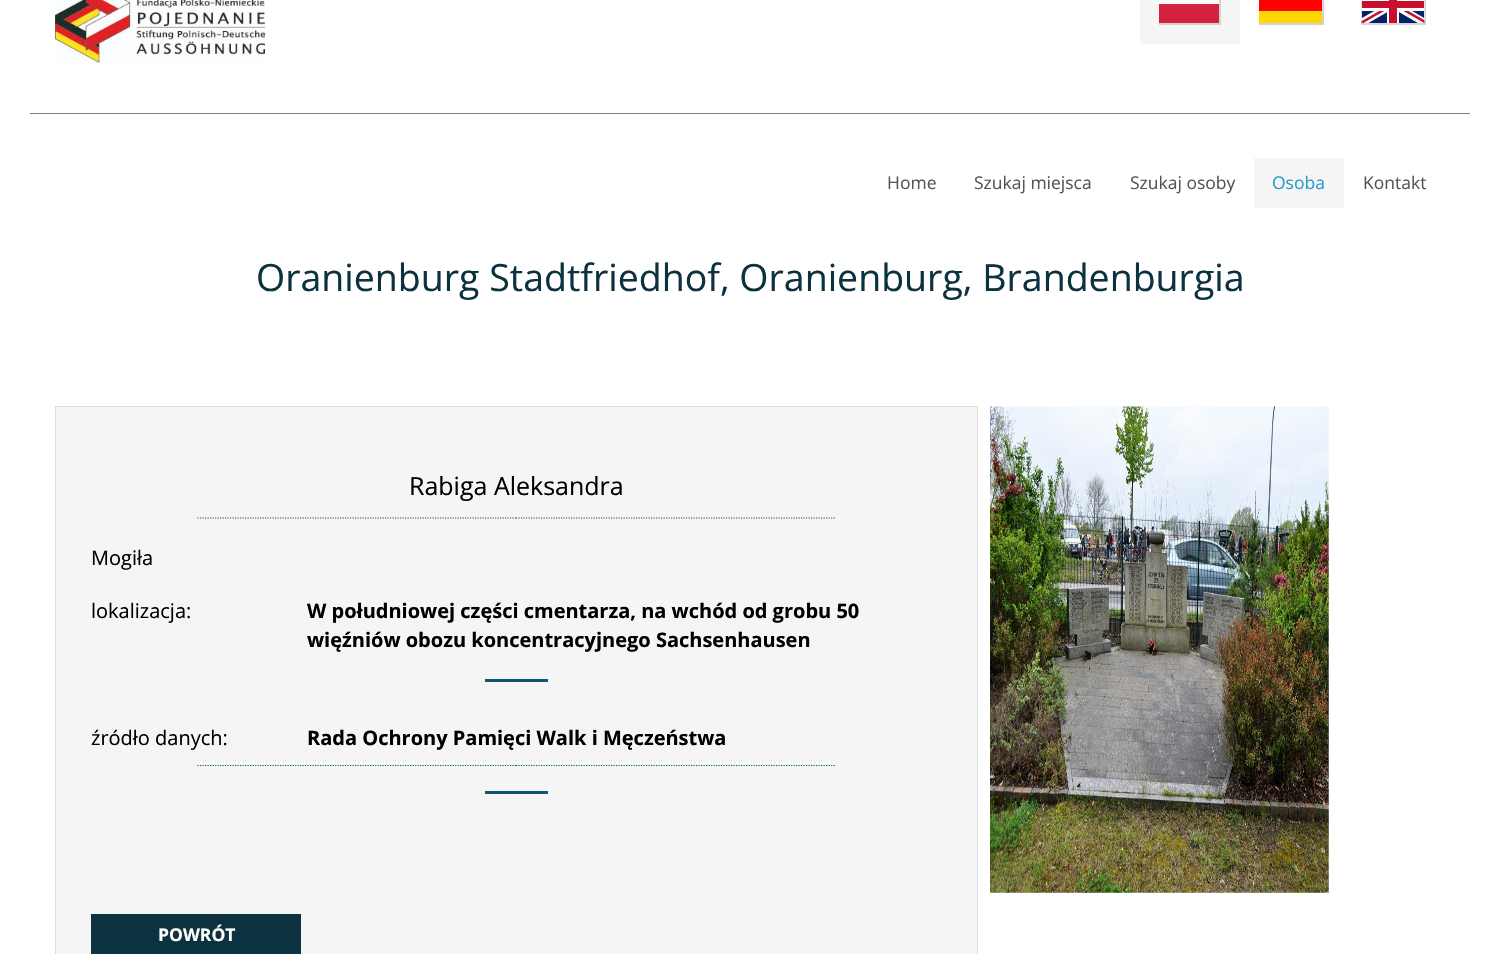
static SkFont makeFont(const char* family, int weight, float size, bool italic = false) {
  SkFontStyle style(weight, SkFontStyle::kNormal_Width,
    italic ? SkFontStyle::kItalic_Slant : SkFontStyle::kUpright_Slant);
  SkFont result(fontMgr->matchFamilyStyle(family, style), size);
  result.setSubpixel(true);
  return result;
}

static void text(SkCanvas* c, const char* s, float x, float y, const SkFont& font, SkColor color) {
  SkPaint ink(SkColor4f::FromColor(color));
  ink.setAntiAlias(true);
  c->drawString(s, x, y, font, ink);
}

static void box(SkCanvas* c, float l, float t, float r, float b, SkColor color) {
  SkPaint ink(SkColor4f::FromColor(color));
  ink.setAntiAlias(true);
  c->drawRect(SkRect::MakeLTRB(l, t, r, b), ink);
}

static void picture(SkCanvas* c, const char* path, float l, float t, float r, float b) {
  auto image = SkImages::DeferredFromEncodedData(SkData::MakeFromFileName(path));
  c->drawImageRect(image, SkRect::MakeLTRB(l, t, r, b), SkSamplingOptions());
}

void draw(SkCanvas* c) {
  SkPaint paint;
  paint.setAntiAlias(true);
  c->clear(0xffffffff);
  picture(c, "img_01.png", 55, 0, 265, 63);
  box(c, 1140, 0, 1240, 44, 0xfff5f5f5);
  box(c, 1159, 0, 1221, 25, 0xffd3d3d3);
  box(c, 1159, 0, 1219, 4, 0xfffaf9f8);
  box(c, 1159, 4, 1219, 23, 0xffd4213d);
  box(c, 1259, 0, 1324, 25, 0xffd3d3d3);
  box(c, 1259, 0, 1322, 11, 0xffff0000);
  box(c, 1259, 11, 1322, 23, 0xffffd700);
  picture(c, "img_02.png", 1361, 0, 1426, 25);
  box(c, 30, 113, 1470, 114, 0xff808080);
  SkFont face1 = makeFont("Open Sans", 400, 17.5f);
  text(c, "Home", 887, 189, face1, 0xff555555);
  text(c, "Szukaj miejsca", 974, 189, face1, 0xff555555);
  text(c, "Szukaj osoby", 1130, 189, face1, 0xff555555);
  box(c, 1254, 158, 1344, 208, 0xfff5f5f5);
  text(c, "Osoba", 1272, 189, face1, 0xff269ccb);
  text(c, "Kontakt", 1363, 189, face1, 0xff555555);
  SkFont face2 = makeFont("Open Sans", 400, 37.5f);
  text(c, "Oranienburg Stadtfriedhof, Oranienburg, Brandenburgia", 256, 291, face2, 0xff0c3240);
  paint.setColor(0xfff5f5f5);
  c->drawRect(SkRect::MakeLTRB(55.5f, 406.5f, 977.5f, 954.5f), paint);
  paint.setStyle(SkPaint::kStroke_Style);
  paint.setStrokeWidth(1);
  paint.setColor(0xffdddddd);
  c->drawRect(SkRect::MakeLTRB(55.5f, 406.5f, 977.5f, 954.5f), paint);
  SkFont face3 = makeFont("Open Sans", 400, 25);
  text(c, "Rabiga Aleksandra", 409, 495, face3, 0xff000000);
  paint.setStrokeWidth(1.2f);
  paint.setColor(0xff155670);
  paint.setPathEffect(SkDashPathEffect::Make({{1.25f, 1.25f}}, 0));
  c->drawPath(SkPathBuilder().moveTo(197.5f, 518).lineTo(516, 518).detach(), paint);
  paint.setPathEffect(nullptr);
  paint.setPathEffect(SkDashPathEffect::Make({{1.25f, 1.25f}}, 0));
  c->drawPath(SkPathBuilder().moveTo(516, 518).lineTo(835, 518).detach(), paint);
  paint.setPathEffect(nullptr);
  SkFont face4 = makeFont("Open Sans", 400, 20);
  text(c, "Mogiła", 91, 565, face4, 0xff000000);
  text(c, "lokalizacja:", 91, 618, face4, 0xff000000);
  SkFont face5 = makeFont("Open Sans", 700, 20);
  text(c, "W południowej części cmentarza, na wchód od grobu 50", 307, 618, face5, 0xff000000);
  text(c, "więźniów obozu koncentracyjnego Sachsenhausen", 307, 647, face5, 0xff000000);
  box(c, 485, 679, 548, 682, 0xff155670);
  text(c, "źródło danych:", 91, 745, face4, 0xff000000);
  text(c, "Rada Ochrony Pamięci Walk i Męczeństwa", 307, 745, face5, 0xff000000);
  paint.setPathEffect(SkDashPathEffect::Make({{1.25f, 1.25f}}, 0));
  c->drawPath(SkPathBuilder().moveTo(197.5f, 765.5f).lineTo(516, 765.5f).detach(), paint);
  paint.setPathEffect(nullptr);
  paint.setPathEffect(SkDashPathEffect::Make({{1.25f, 1.25f}}, 0));
  c->drawPath(SkPathBuilder().moveTo(516, 765.5f).lineTo(835, 765.5f).detach(), paint);
  paint.setPathEffect(nullptr);
  box(c, 485, 791, 548, 794, 0xff155670);
  box(c, 91, 914, 301, 954, 0xff0c3240);
  SkFont face6 = makeFont("Open Sans", 700, 17.5f);
  text(c, "POWRÓT", 158, 941, face6, 0xffffffff);
  picture(c, "img_03.png", 990, 406, 1329, 893);
}
